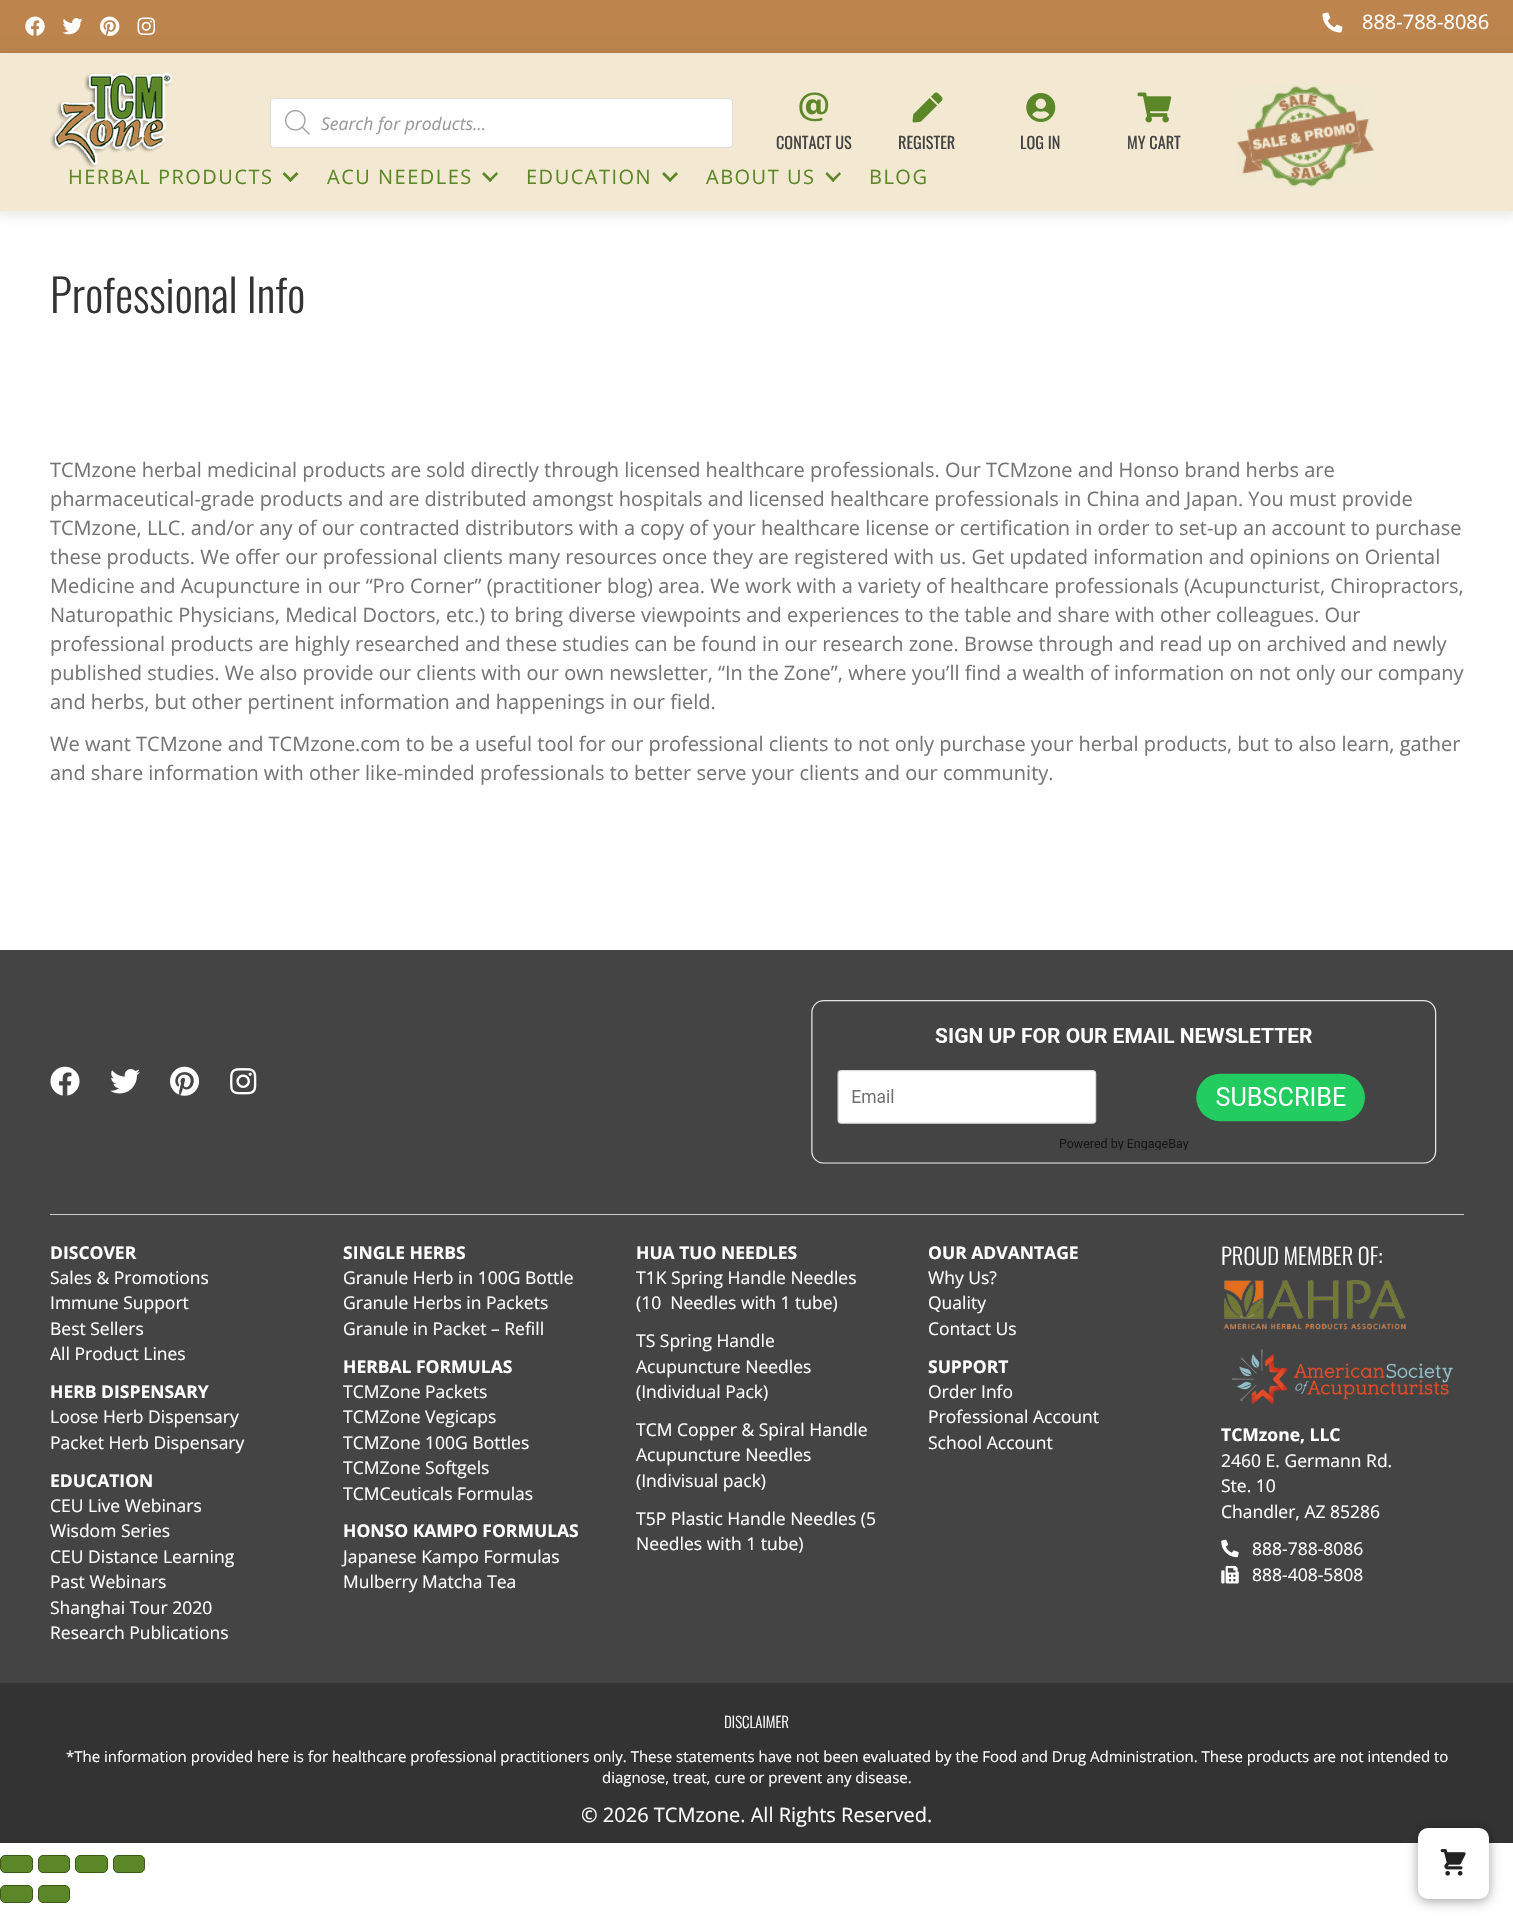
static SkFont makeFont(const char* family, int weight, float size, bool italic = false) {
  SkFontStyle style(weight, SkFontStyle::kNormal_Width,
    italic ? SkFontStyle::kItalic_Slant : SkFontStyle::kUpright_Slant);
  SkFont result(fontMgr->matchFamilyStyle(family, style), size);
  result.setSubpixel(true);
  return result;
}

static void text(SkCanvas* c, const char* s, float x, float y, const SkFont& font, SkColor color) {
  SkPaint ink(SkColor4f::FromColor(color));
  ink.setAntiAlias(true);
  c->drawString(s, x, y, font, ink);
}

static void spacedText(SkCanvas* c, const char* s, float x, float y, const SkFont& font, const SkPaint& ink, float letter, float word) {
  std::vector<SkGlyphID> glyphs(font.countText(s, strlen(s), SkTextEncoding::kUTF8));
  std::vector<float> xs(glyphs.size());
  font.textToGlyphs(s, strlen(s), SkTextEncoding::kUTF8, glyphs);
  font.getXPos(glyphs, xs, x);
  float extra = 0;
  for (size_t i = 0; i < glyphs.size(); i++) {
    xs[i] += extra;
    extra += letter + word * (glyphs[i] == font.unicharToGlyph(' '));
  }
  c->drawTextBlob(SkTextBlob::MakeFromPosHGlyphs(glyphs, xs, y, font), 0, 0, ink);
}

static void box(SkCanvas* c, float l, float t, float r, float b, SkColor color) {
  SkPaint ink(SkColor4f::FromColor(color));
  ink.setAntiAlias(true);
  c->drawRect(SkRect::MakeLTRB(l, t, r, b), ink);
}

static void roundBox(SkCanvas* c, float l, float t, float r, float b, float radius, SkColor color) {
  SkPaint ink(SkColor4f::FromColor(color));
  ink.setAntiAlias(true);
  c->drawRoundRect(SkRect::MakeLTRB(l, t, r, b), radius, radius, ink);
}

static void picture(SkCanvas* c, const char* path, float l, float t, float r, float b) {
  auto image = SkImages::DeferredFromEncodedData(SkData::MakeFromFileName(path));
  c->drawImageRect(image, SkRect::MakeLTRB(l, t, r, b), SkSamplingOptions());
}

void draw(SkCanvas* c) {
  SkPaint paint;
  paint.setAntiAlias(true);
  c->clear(0xffffffff);
  box(c, 0, 0, 1513, 53, 0xffbd854d);
  picture(c, "img_01.png", 25, 16, 45, 36);
  picture(c, "img_02.png", 62, 18, 83, 35);
  picture(c, "img_03.png", 100, 16, 120, 36);
  picture(c, "img_04.png", 137, 17, 156, 35);
  picture(c, "img_05.png", 1322, 12, 1343, 33);
  SkFont face1 = makeFont("Open Sans", 400, 20);
  text(c, "888-788-8086", 1362, 29, face1, 0xffffffff);
  paint.setColor(0x1a000000);
  paint.setMaskFilter(SkMaskFilter::MakeBlur(kNormal_SkBlurStyle, 6));
  c->drawRect(SkRect::MakeLTRB(-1, 53, 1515, 215), paint);
  paint.setMaskFilter(nullptr);
  box(c, 0, 53, 1513, 211, 0xfff3e9d2);
  box(c, 0, 211, 1513, 212, 0xffefefef);
  picture(c, "img_06.png", 50, 73, 172, 168);
  paint.setColor(0xffffffff);
  c->drawRoundRect(SkRect::MakeLTRB(270.5f, 98.5f, 732.5f, 147.5f), 3.5f, 3.5f, paint);
  paint.setStyle(SkPaint::kStroke_Style);
  paint.setStrokeWidth(1);
  paint.setColor(0xffdddddd);
  c->drawRoundRect(SkRect::MakeLTRB(270.5f, 98.5f, 732.5f, 147.5f), 3.5f, 3.5f, paint);
  picture(c, "img_07.png", 285, 110, 310, 135);
  SkFont face2 = makeFont("Open Sans", 400, 17.5f, true);
  text(c, "Search for products...", 321, 130, face2, 0xff999999);
  picture(c, "img_08.png", 1237, 84, 1375, 187);
  picture(c, "img_09.png", 799, 92, 829, 122);
  SkFont face3 = makeFont("Oswald", 400, 16.25f);
  text(c, "CONTACT US", 776, 149, face3, 0xff444444);
  picture(c, "img_10.png", 912, 92, 943, 123);
  text(c, "REGISTER", 898, 149, face3, 0xff444444);
  picture(c, "img_11.png", 1026, 93, 1056, 122);
  text(c, "LOG IN", 1020, 149, face3, 0xff444444);
  picture(c, "img_12.png", 1137, 92, 1172, 123);
  text(c, "MY CART", 1127, 149, face3, 0xff444444);
  paint.setStyle(SkPaint::kFill_Style);
  paint.setColor(0xff5c8728);
  spacedText(c, "HERBAL PRODUCTS", 68, 184, face1, paint, 1.5f, 0);
  c->drawPath(SkPathBuilder().moveTo(296.5f, 172).lineTo(298.5f, 174).lineTo(290.5f, 182).lineTo(288.5f, 180).close().detach(), paint);
  c->drawPath(SkPathBuilder().moveTo(284.5f, 172).lineTo(292.5f, 180).lineTo(290.5f, 182).lineTo(282.5f, 174).close().detach(), paint);
  spacedText(c, "ACU NEEDLES", 327, 184, face1, paint, 1.5f, 0);
  c->drawPath(SkPathBuilder().moveTo(496.5f, 172).lineTo(498, 174).lineTo(490, 182).lineTo(488.5f, 180).close().detach(), paint);
  c->drawPath(SkPathBuilder().moveTo(484, 172).lineTo(492, 180).lineTo(490, 182).lineTo(482, 174).close().detach(), paint);
  spacedText(c, "EDUCATION", 526, 184, face1, paint, 1.5f, 0);
  c->drawPath(SkPathBuilder().moveTo(676, 172).lineTo(678, 174).lineTo(670, 182).lineTo(668.5f, 180).close().detach(), paint);
  c->drawPath(SkPathBuilder().moveTo(664, 172).lineTo(672, 180).lineTo(670, 182).lineTo(662, 174).close().detach(), paint);
  spacedText(c, "ABOUT US", 706, 184, face1, paint, 1.5f, 0);
  c->drawPath(SkPathBuilder().moveTo(839.5f, 172).lineTo(841, 174).lineTo(833, 182).lineTo(831.5f, 180).close().detach(), paint);
  c->drawPath(SkPathBuilder().moveTo(827, 172).lineTo(835, 180).lineTo(833, 182).lineTo(825.5f, 174).close().detach(), paint);
  spacedText(c, "BLOG", 869, 184, face1, paint, 1.5f, 0);
  SkFont face4 = makeFont("Oswald", 300, 45);
  text(c, "Professional Info", 50, 313, face4, 0xff333333);
  text(c, "TCMzone herbal medicinal products are sold directly through licensed healthcare professionals. Our TCMzone and Honso brand herbs are", 50, 477, face1, 0xff757575);
  text(c, "pharmaceutical-grade products and are distributed amongst hospitals and licensed healthcare professionals in China and Japan. You must provide", 50, 506, face1, 0xff757575);
  text(c, "TCMzone, LLC. and/or any of our contracted distributors with a copy of your healthcare license or certification in order to set-up an account to purchase", 50, 535, face1, 0xff757575);
  text(c, "these products. We offer our professional clients many resources once they are registered with us. Get updated information and opinions on Oriental", 50, 564, face1, 0xff757575);
  text(c, "Medicine and Acupuncture in our “Pro Corner” (practitioner blog) area. We work with a variety of healthcare professionals (Acupuncturist, Chiropractors,", 50, 593, face1, 0xff757575);
  text(c, "Naturopathic Physicians, Medical Doctors, etc.) to bring diverse viewpoints and experiences to the table and share with other colleagues. Our", 50, 622, face1, 0xff757575);
  text(c, "professional products are highly researched and these studies can be found in our research zone. Browse through and read up on archived and newly", 50, 651, face1, 0xff757575);
  text(c, "published studies. We also provide our clients with our own newsletter, “In the Zone”, where you’ll find a wealth of information on not only our company", 50, 680, face1, 0xff757575);
  text(c, "and herbs, but other pertinent information and happenings in our field.", 50, 709, face1, 0xff757575);
  text(c, "We want TCMzone and TCMzone.com to be a useful tool for our professional clients to not only purchase your herbal products, but to also learn, gather", 50, 751, face1, 0xff757575);
  text(c, "and share information with other like-minded professionals to better serve your clients and our community.", 50, 780, face1, 0xff757575);
  box(c, 0, 950, 1513, 1683, 0xff444444);
  picture(c, "img_13.png", 50, 1066, 80, 1096);
  picture(c, "img_14.png", 110, 1069, 140, 1094);
  picture(c, "img_15.png", 170, 1066, 200, 1096);
  picture(c, "img_16.png", 230, 1068, 257, 1095);
  picture(c, "img_17.png", 811, 1000, 1437, 1164);
  box(c, 50, 1214, 1464, 1215, 0xffcccccc);
  SkFont face5 = makeFont("Open Sans", 700, 17.5f);
  text(c, "DISCOVER", 50, 1259, face5, 0xffffffff);
  SkFont face6 = makeFont("Open Sans", 400, 17.5f);
  text(c, "Sales & Promotions", 50, 1284, face6, 0xffffffff);
  text(c, "Immune Support", 50, 1309, face6, 0xffffffff);
  text(c, "Best Sellers", 50, 1335, face6, 0xffffffff);
  text(c, "All Product Lines", 50, 1360, face6, 0xffffffff);
  text(c, "HERB DISPENSARY", 50, 1398, face5, 0xffffffff);
  text(c, "Loose Herb Dispensary", 50, 1423, face6, 0xffffffff);
  text(c, "Packet Herb Dispensary", 50, 1449, face6, 0xffffffff);
  text(c, "EDUCATION", 50, 1487, face5, 0xffffffff);
  text(c, "CEU Live Webinars", 50, 1512, face6, 0xffffffff);
  text(c, "Wisdom Series", 50, 1537, face6, 0xffffffff);
  text(c, "CEU Distance Learning", 50, 1563, face6, 0xffffffff);
  text(c, "Past Webinars", 50, 1588, face6, 0xffffffff);
  text(c, "Shanghai Tour 2020", 50, 1614, face6, 0xffffffff);
  text(c, "Research Publications", 50, 1639, face6, 0xffffffff);
  text(c, "SINGLE HERBS", 343, 1259, face5, 0xffffffff);
  text(c, "Granule Herb in 100G Bottle", 343, 1284, face6, 0xffffffff);
  text(c, "Granule Herbs in Packets", 343, 1309, face6, 0xffffffff);
  text(c, "Granule in Packet – Refill", 343, 1335, face6, 0xffffffff);
  text(c, "HERBAL FORMULAS", 343, 1373, face5, 0xffffffff);
  text(c, "TCMZone Packets", 343, 1398, face6, 0xffffffff);
  text(c, "TCMZone Vegicaps", 343, 1423, face6, 0xffffffff);
  text(c, "TCMZone 100G Bottles", 343, 1449, face6, 0xffffffff);
  text(c, "TCMZone Softgels", 343, 1474, face6, 0xffffffff);
  text(c, "TCMCeuticals Formulas", 343, 1500, face6, 0xffffffff);
  text(c, "HONSO KAMPO FORMULAS", 343, 1537, face5, 0xffffffff);
  text(c, "Japanese Kampo Formulas", 343, 1563, face6, 0xffffffff);
  text(c, "Mulberry Matcha Tea", 343, 1588, face6, 0xffffffff);
  text(c, "HUA TUO NEEDLES", 636, 1259, face5, 0xffffffff);
  text(c, "T1K Spring Handle Needles", 636, 1284, face6, 0xffffffff);
  text(c, "(10  Needles with 1 tube)", 636, 1309, face6, 0xffffffff);
  text(c, "TS Spring Handle", 636, 1347, face6, 0xffffffff);
  text(c, "Acupuncture Needles", 636, 1373, face6, 0xffffffff);
  text(c, "(Individual Pack)", 636, 1398, face6, 0xffffffff);
  text(c, "TCM Copper & Spiral Handle", 636, 1436, face6, 0xffffffff);
  text(c, "Acupuncture Needles", 636, 1461, face6, 0xffffffff);
  text(c, "(Indivisual pack)", 636, 1487, face6, 0xffffffff);
  text(c, "T5P Plastic Handle Needles (5", 636, 1525, face6, 0xffffffff);
  text(c, "Needles with 1 tube)", 636, 1550, face6, 0xffffffff);
  text(c, "OUR ADVANTAGE", 928, 1259, face5, 0xffffffff);
  text(c, "Why Us?", 928, 1284, face6, 0xffffffff);
  text(c, "Quality", 928, 1309, face6, 0xffffffff);
  text(c, "Contact Us", 928, 1335, face6, 0xffffffff);
  text(c, "SUPPORT", 928, 1373, face5, 0xffffffff);
  text(c, "Order Info", 928, 1398, face6, 0xffffffff);
  text(c, "Professional Account", 928, 1423, face6, 0xffffffff);
  text(c, "School Account", 928, 1449, face6, 0xffffffff);
  SkFont face7 = makeFont("Oswald", 300, 22.5f);
  text(c, "PROUD MEMBER OF:", 1221, 1265, face7, 0xffffffff);
  picture(c, "img_18.png", 1223, 1280, 1406, 1330);
  picture(c, "img_19.png", 1232, 1349, 1453, 1405);
  text(c, "TCMzone, LLC", 1221, 1441, face5, 0xffffffff);
  text(c, "2460 E. Germann Rd.", 1221, 1467, face6, 0xffffffff);
  text(c, "Ste. 10", 1221, 1492, face6, 0xffffffff);
  text(c, "Chandler, AZ 85286", 1221, 1518, face6, 0xffffffff);
  picture(c, "img_20.png", 1221, 1539, 1239, 1558);
  text(c, "888-788-8086", 1252, 1555, face6, 0xffffffff);
  picture(c, "img_21.png", 1221, 1565, 1239, 1584);
  text(c, "888-408-5808", 1252, 1581, face6, 0xffffffff);
  box(c, 0, 1683, 1513, 1843, 0xff333333);
  SkFont face8 = makeFont("Oswald", 300, 15);
  text(c, "DISCLAIMER", 724, 1728, face8, 0xffffffff);
  SkFont face9 = makeFont("Open Sans", 400, 15);
  text(c, "*The information provided here is for healthcare professional practitioners only. These statements have not been evaluated by the Food and Drug Administration. These products are not intended to", 66, 1762, face9, 0xffffffff);
  text(c, "diagnose, treat, cure or prevent any disease.", 602, 1783, face9, 0xffffffff);
  text(c, "© 2026 TCMzone. All Rights Reserved.", 581, 1822, face1, 0xffffffff);
  c->drawRoundRect(SkRect::MakeLTRB(0.5f, 1855.5f, 32.5f, 1872.5f), 4.5f, 4.5f, paint);
  paint.setStyle(SkPaint::kStroke_Style);
  paint.setColor(0xff3c581a);
  c->drawRoundRect(SkRect::MakeLTRB(0.5f, 1855.5f, 32.5f, 1872.5f), 4.5f, 4.5f, paint);
  paint.setStyle(SkPaint::kFill_Style);
  paint.setColor(0xff5c8728);
  c->drawRoundRect(SkRect::MakeLTRB(38.5f, 1855.5f, 69.5f, 1872.5f), 4.5f, 4.5f, paint);
  paint.setStyle(SkPaint::kStroke_Style);
  paint.setColor(0xff3c581a);
  c->drawRoundRect(SkRect::MakeLTRB(38.5f, 1855.5f, 69.5f, 1872.5f), 4.5f, 4.5f, paint);
  paint.setStyle(SkPaint::kFill_Style);
  paint.setColor(0xff5c8728);
  c->drawRoundRect(SkRect::MakeLTRB(75.5f, 1855.5f, 107.5f, 1872.5f), 4.5f, 4.5f, paint);
  paint.setStyle(SkPaint::kStroke_Style);
  paint.setColor(0xff3c581a);
  c->drawRoundRect(SkRect::MakeLTRB(75.5f, 1855.5f, 107.5f, 1872.5f), 4.5f, 4.5f, paint);
  paint.setStyle(SkPaint::kFill_Style);
  paint.setColor(0xff5c8728);
  c->drawRoundRect(SkRect::MakeLTRB(113.5f, 1855.5f, 144.5f, 1872.5f), 4.5f, 4.5f, paint);
  paint.setStyle(SkPaint::kStroke_Style);
  paint.setColor(0xff3c581a);
  c->drawRoundRect(SkRect::MakeLTRB(113.5f, 1855.5f, 144.5f, 1872.5f), 4.5f, 4.5f, paint);
  paint.setStyle(SkPaint::kFill_Style);
  paint.setColor(0xff5c8728);
  c->drawRoundRect(SkRect::MakeLTRB(0.5f, 1885.5f, 32.5f, 1902.5f), 4.5f, 4.5f, paint);
  paint.setStyle(SkPaint::kStroke_Style);
  paint.setColor(0xff3c581a);
  c->drawRoundRect(SkRect::MakeLTRB(0.5f, 1885.5f, 32.5f, 1902.5f), 4.5f, 4.5f, paint);
  paint.setStyle(SkPaint::kFill_Style);
  paint.setColor(0xff5c8728);
  c->drawRoundRect(SkRect::MakeLTRB(38.5f, 1885.5f, 69.5f, 1902.5f), 4.5f, 4.5f, paint);
  paint.setStyle(SkPaint::kStroke_Style);
  paint.setColor(0xff3c581a);
  c->drawRoundRect(SkRect::MakeLTRB(38.5f, 1885.5f, 69.5f, 1902.5f), 4.5f, 4.5f, paint);
  paint.setStyle(SkPaint::kFill_Style);
  paint.setColor(0x5e000000);
  paint.setMaskFilter(SkMaskFilter::MakeBlur(kNormal_SkBlurStyle, 6));
  c->drawRoundRect(SkRect::MakeLTRB(1418, 1830, 1489, 1901), 10, 10, paint);
  paint.setMaskFilter(nullptr);
  roundBox(c, 1418, 1828, 1489, 1899, 10, 0xffffffff);
  picture(c, "img_22.png", 1440, 1849, 1466, 1876);
}
